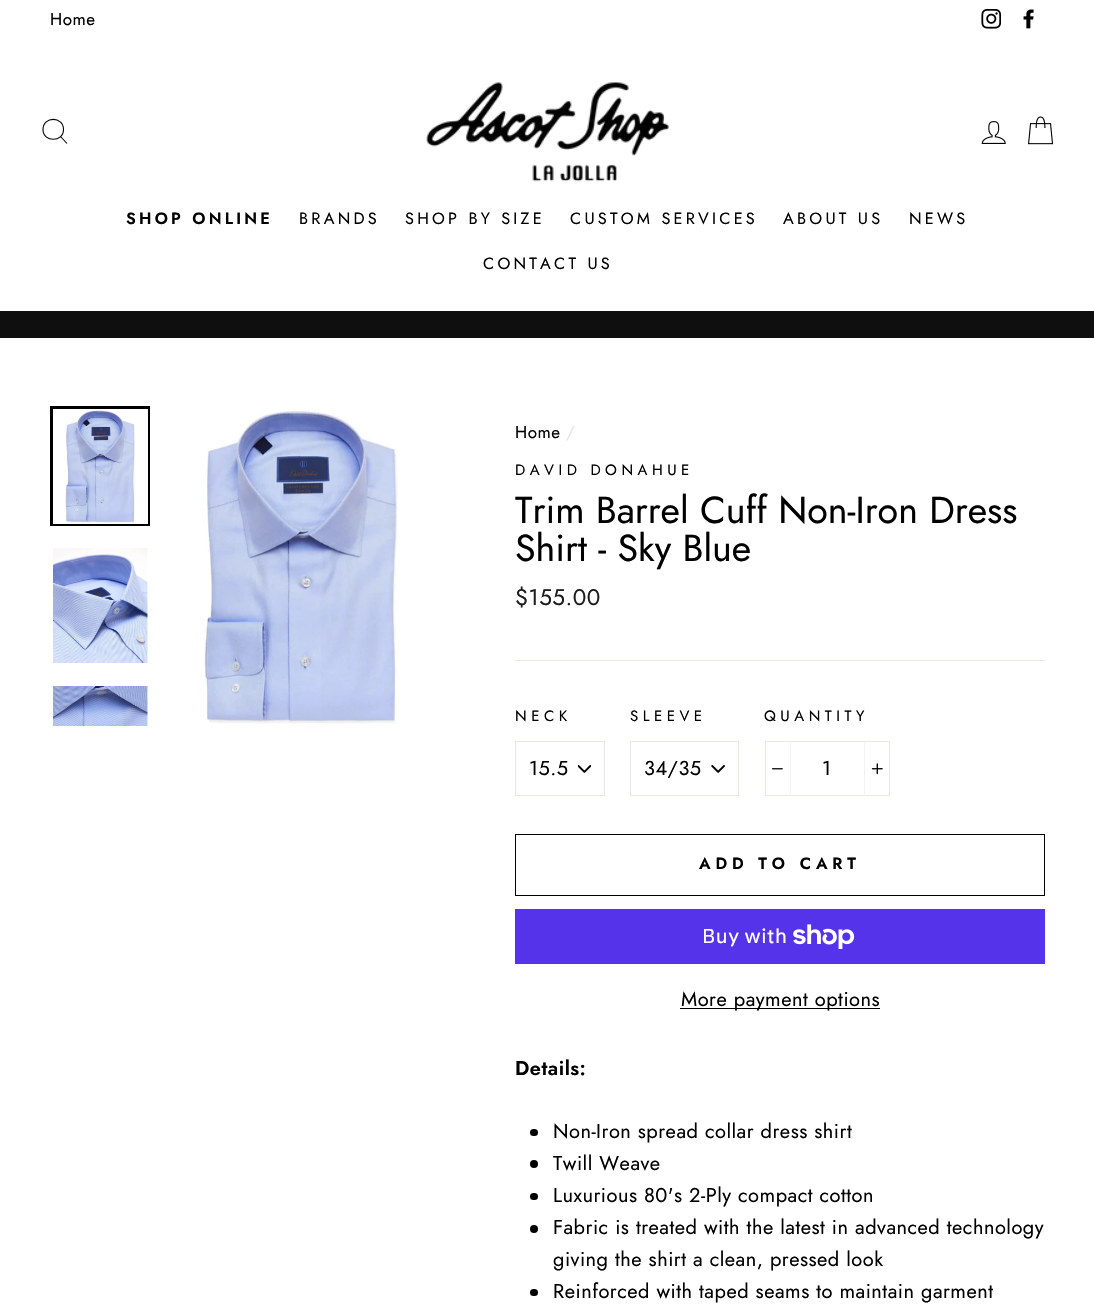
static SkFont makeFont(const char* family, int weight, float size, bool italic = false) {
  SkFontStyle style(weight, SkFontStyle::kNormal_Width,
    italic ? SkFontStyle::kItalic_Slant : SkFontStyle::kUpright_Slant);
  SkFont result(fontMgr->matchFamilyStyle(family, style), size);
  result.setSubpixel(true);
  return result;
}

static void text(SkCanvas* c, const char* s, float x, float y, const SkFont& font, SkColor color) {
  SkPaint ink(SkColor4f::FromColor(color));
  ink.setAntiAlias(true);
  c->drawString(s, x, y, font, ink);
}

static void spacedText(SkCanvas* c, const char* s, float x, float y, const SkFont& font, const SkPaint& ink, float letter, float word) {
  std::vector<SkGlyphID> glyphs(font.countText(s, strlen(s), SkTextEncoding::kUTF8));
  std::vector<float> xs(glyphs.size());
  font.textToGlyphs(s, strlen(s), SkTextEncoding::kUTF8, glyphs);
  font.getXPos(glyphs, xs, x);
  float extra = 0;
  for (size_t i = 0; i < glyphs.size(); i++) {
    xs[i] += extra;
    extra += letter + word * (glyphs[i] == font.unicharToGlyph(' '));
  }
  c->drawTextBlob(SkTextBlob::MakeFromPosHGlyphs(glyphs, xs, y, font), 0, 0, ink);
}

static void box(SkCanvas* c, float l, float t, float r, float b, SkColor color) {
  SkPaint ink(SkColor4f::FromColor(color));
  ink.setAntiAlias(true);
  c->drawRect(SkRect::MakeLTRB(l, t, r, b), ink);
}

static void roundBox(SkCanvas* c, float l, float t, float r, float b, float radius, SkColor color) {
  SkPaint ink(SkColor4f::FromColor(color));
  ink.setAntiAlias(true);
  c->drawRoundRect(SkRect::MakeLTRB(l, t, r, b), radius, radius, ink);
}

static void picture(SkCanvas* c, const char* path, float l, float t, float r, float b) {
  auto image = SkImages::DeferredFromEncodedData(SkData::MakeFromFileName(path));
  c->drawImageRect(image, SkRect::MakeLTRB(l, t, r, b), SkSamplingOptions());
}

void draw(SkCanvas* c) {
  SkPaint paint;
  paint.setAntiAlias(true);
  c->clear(0xffffffff);
  SkFont face1 = makeFont("Jost", 400, 17);
  paint.setColor(0xff000000);
  spacedText(c, "Home", 50, 25, face1, paint, 0.5f, 0);
  picture(c, "img_01.png", 981, 9, 1001, 29);
  picture(c, "img_02.png", 1023, 9, 1034, 29);
  paint.setStyle(SkPaint::kStroke_Style);
  paint.setStrokeWidth(1.1f);
  c->drawPath(SkPathBuilder().moveTo(63.5f, 129.5f).cubicTo(63.5f, 142.5f, 43, 142.5f, 43, 129.5f).cubicTo(43, 116, 63.5f, 116, 63.5f, 129.5f).close().moveTo(67, 143.5f).lineTo(60.5f, 136.5f).detach(), paint);
  picture(c, "img_03.png", 426, 82, 669, 182);
  picture(c, "img_04.png", 981, 121, 1006, 144);
  picture(c, "img_05.png", 1028, 116, 1054, 145);
  SkFont face2 = makeFont("Jost", 600, 16.25f);
  paint.setStyle(SkPaint::kFill_Style);
  spacedText(c, "SHOP ONLINE", 126, 224, face2, paint, 3.25f, 0);
  SkFont face3 = makeFont("Jost", 400, 16.25f);
  spacedText(c, "BRANDS", 299, 224, face3, paint, 3.25f, 0);
  spacedText(c, "SHOP BY SIZE", 405, 224, face3, paint, 3.25f, 0);
  spacedText(c, "CUSTOM SERVICES", 570, 224, face3, paint, 3.25f, 0);
  spacedText(c, "ABOUT US", 783, 224, face3, paint, 3.25f, 0);
  spacedText(c, "NEWS", 909, 224, face3, paint, 3.25f, 0);
  spacedText(c, "CONTACT US", 483, 269, face3, paint, 3.25f, 0);
  box(c, 0, 311, 1094, 338, 0xff0f0f0f);
  paint.setStyle(SkPaint::kStroke_Style);
  paint.setStrokeWidth(3);
  c->drawRect(SkRect::MakeLTRB(51.5f, 407.5f, 148.5f, 524.5f), paint);
  box(c, 53, 409, 148, 524, 0xffffffff);
  picture(c, "img_06.png", 65, 410, 135, 523);
  picture(c, "img_07.png", 53, 548, 148, 663);
  picture(c, "img_08.png", 53, 686, 148, 726);
  picture(c, "img_09.png", 204, 410, 398, 724);
  paint.setStyle(SkPaint::kFill_Style);
  spacedText(c, "Home", 515, 438, face1, paint, 0.5f, 0);
  paint.setColor(0xffe8e8e1);
  spacedText(c, "/", 566, 438, face1, paint, 0.5f, 0);
  SkFont face4 = makeFont("Jost", 400, 15);
  paint.setColor(0xff000000);
  spacedText(c, "DAVID DONAHUE", 515, 475, face4, paint, 4.5f, 0);
  SkFont face5 = makeFont("Jost", 400, 37.6f);
  text(c, "Trim Barrel Cuff Non-Iron Dress", 515, 523, face5, 0xff000000);
  text(c, "Shirt - Sky Blue", 515, 561, face5, 0xff000000);
  SkFont face6 = makeFont("Jost", 400, 22.5f);
  paint.setColor(0xff1c1d1d);
  spacedText(c, "$155.00", 515, 605, face6, paint, 0.5f, 0);
  box(c, 515, 660, 1045, 661, 0xffe8e8e1);
  paint.setColor(0xff000000);
  spacedText(c, "NECK", 515, 721, face4, paint, 4.5f, 0);
  picture(c, "img_10.png", 578, 765, 591, 773);
  paint.setStyle(SkPaint::kStroke_Style);
  paint.setStrokeWidth(1);
  paint.setColor(0xffe8e8e1);
  c->drawRect(SkRect::MakeLTRB(515.5f, 741.5f, 604.5f, 795.5f), paint);
  SkFont face7 = makeFont("Jost", 400, 20);
  paint.setStyle(SkPaint::kFill_Style);
  paint.setColor(0xff000000);
  spacedText(c, "15.5", 529, 775, face7, paint, 0.5f, 0);
  spacedText(c, "SLEEVE", 630, 721, face4, paint, 4.5f, 0);
  picture(c, "img_11.png", 711, 765, 725, 773);
  paint.setStyle(SkPaint::kStroke_Style);
  paint.setColor(0xffe8e8e1);
  c->drawRect(SkRect::MakeLTRB(630.5f, 741.5f, 738.5f, 795.5f), paint);
  paint.setStyle(SkPaint::kFill_Style);
  paint.setColor(0xff000000);
  spacedText(c, "34/35", 644, 775, face7, paint, 0.5f, 0);
  spacedText(c, "QUANTITY", 764, 721, face4, paint, 4.5f, 0);
  paint.setStyle(SkPaint::kStroke_Style);
  paint.setColor(0xffe8e8e1);
  c->drawRect(SkRect::MakeLTRB(765.5f, 741.5f, 889.5f, 795.5f), paint);
  box(c, 790, 741, 791, 796, 0xfff2f2f2);
  picture(c, "img_12.png", 772, 768, 783, 770);
  paint.setStyle(SkPaint::kFill_Style);
  paint.setColor(0xff000000);
  spacedText(c, "1", 822, 775, face7, paint, 0.5f, 0);
  box(c, 864, 741, 865, 796, 0xfff2f2f2);
  picture(c, "img_13.png", 871, 763, 883, 775);
  paint.setStyle(SkPaint::kStroke_Style);
  c->drawRect(SkRect::MakeLTRB(515.5f, 834.5f, 1044.5f, 895.5f), paint);
  paint.setStyle(SkPaint::kFill_Style);
  spacedText(c, "ADD TO CART", 699, 869, face2, paint, 4.9f, 0);
  box(c, 515, 909, 1045, 964, 0xff5433eb);
  SkFont face8 = makeFont("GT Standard", 400, 20);
  paint.setColor(0xffffffff);
  spacedText(c, "Buy with", 702, 943, face8, paint, 0.5f, 0);
  picture(c, "img_14.png", 793, 924, 855, 949);
  box(c, 680, 1008, 880, 1009, 0xff000000);
  paint.setColor(0xff000000);
  spacedText(c, "More payment options", 681, 1006, face7, paint, 0.5f, 0);
  SkFont face9 = makeFont("Jost", 600, 20);
  spacedText(c, "Details:", 515, 1075, face9, paint, 0.5f, 0);
  roundBox(c, 530, 1129, 538, 1136, 3.5f, 0xff000000);
  spacedText(c, "Non-Iron spread collar dress shirt", 553, 1138, face7, paint, 0.5f, 0);
  c->drawCircle(534, 1164, 4, paint);
  spacedText(c, "Twill Weave", 553, 1170, face7, paint, 0.5f, 0);
  roundBox(c, 530, 1193, 538, 1200, 3.5f, 0xff000000);
  spacedText(c, "Luxurious 80's 2-Ply compact cotton", 553, 1202, face7, paint, 0.5f, 0);
  c->drawCircle(534, 1229, 4, paint);
  spacedText(c, "Fabric is treated with the latest in advanced technology", 553, 1234, face7, paint, 0.5f, 0);
  spacedText(c, "giving the shirt a clean, pressed look", 553, 1266, face7, paint, 0.5f, 0);
  roundBox(c, 530, 1289, 538, 1296, 3.5f, 0xff000000);
  spacedText(c, "Reinforced with taped seams to maintain garment", 553, 1298, face7, paint, 0.5f, 0);
}
